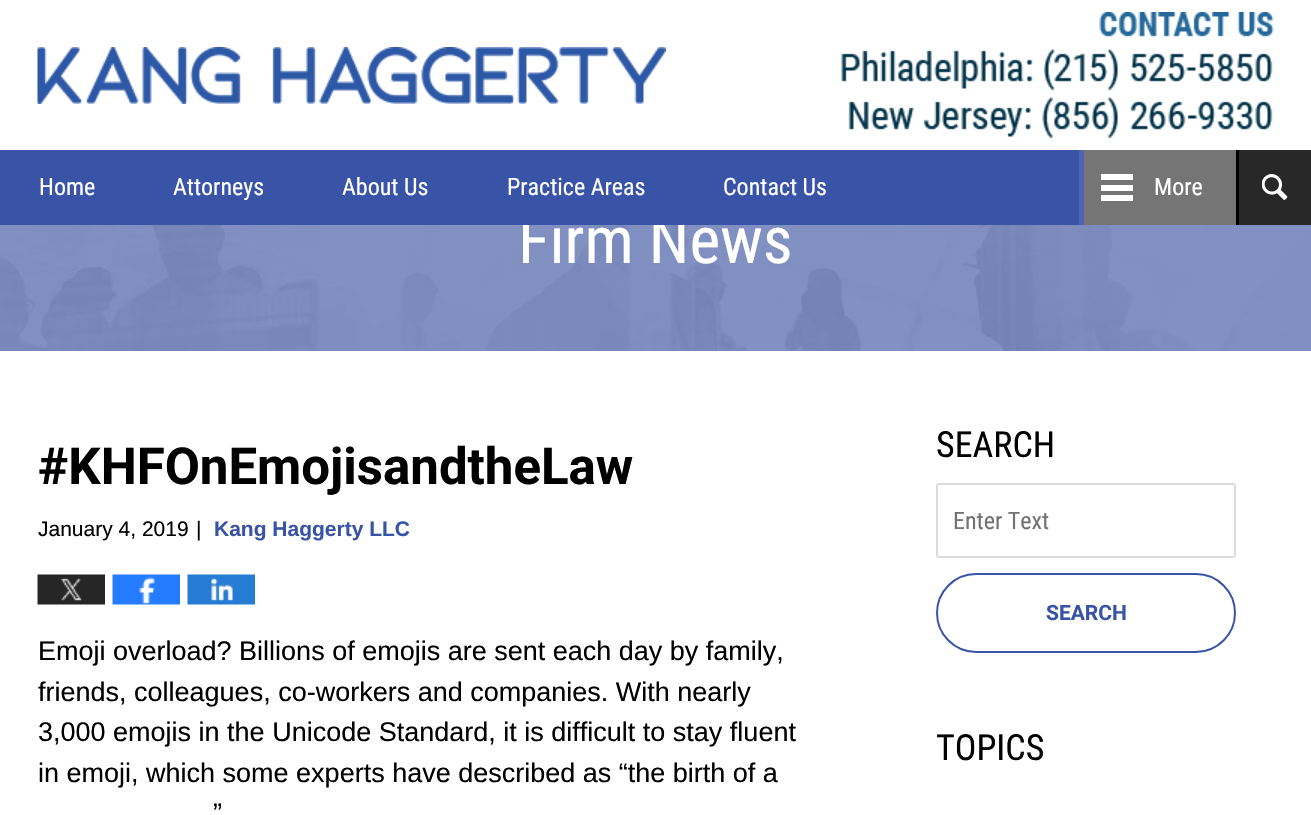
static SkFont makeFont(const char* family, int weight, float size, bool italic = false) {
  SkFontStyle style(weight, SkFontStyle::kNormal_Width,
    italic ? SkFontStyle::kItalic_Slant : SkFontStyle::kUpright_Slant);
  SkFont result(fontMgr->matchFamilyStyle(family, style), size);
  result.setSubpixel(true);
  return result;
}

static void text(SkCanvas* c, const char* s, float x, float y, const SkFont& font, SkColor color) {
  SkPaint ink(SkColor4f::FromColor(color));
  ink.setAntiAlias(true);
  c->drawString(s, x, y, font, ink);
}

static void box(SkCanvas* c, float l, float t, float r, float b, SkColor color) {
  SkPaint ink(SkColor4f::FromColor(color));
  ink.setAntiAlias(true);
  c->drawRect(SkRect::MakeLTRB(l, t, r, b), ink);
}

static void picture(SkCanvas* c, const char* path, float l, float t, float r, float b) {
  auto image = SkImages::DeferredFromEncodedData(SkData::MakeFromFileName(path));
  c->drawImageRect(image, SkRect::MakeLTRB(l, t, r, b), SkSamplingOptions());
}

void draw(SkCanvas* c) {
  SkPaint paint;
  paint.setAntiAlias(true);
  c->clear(0xffffffff);
  picture(c, "img_01.png", 37, 47, 666, 104);
  picture(c, "img_02.png", 841, 12, 1274, 138);
  picture(c, "img_04.png", 0, 225, 1311, 351);
  SkFont face1 = makeFont("Roboto Condensed", 400, 65.5f);
  text(c, "Firm News", 518, 263, face1, 0xffffffff);
  box(c, 0, 150, 1079, 225, 0xff3953a6);
  SkFont face2 = makeFont("Roboto Condensed", 400, 24);
  text(c, "Home", 39, 195, face2, 0xffffffff);
  text(c, "Attorneys", 173, 195, face2, 0xffffffff);
  text(c, "About Us", 342, 195, face2, 0xffffffff);
  text(c, "Practice Areas", 507, 195, face2, 0xffffffff);
  text(c, "Contact Us", 723, 195, face2, 0xffffffff);
  box(c, 1084, 150, 1236, 225, 0xff757575);
  box(c, 1079, 150, 1084, 225, 0xff4d64af);
  box(c, 1101, 195, 1133, 201, 0xffffffff);
  box(c, 1101, 185, 1133, 191, 0xffffffff);
  box(c, 1101, 174, 1133, 180, 0xffffffff);
  text(c, "More", 1154, 195, face2, 0xffffffff);
  box(c, 1239, 150, 1311, 225, 0xff282828);
  picture(c, "img_03.png", 1262, 174, 1288, 200);
  box(c, 1236, 150, 1239, 225, 0xff000000);
  SkFont face3 = makeFont("Roboto", 700, 51);
  text(c, "#KHFOnEmojisandtheLaw", 38, 484, face3, 0xff000000);
  SkFont face4 = makeFont("Liberation Sans", 400, 21);
  text(c, "January 4, 2019", 38, 536, face4, 0xff000000);
  text(c, "|", 196, 536, face4, 0xff000000);
  SkFont face5 = makeFont("Liberation Sans", 700, 21);
  text(c, "Kang Haggerty LLC", 214, 536, face5, 0xff3953a6);
  picture(c, "img_05.png", 37, 574, 105, 605);
  picture(c, "img_06.png", 112, 574, 180, 605);
  picture(c, "img_07.png", 187, 574, 255, 605);
  SkFont face6 = makeFont("Liberation Sans", 400, 27);
  text(c, "Emoji overload? Billions of emojis are sent each day by family,", 38, 660, face6, 0xff000000);
  text(c, "friends, colleagues, co-workers and companies. With nearly", 38, 701, face6, 0xff000000);
  text(c, "3,000 emojis in the Unicode Standard, it is difficult to stay fluent", 38, 741, face6, 0xff000000);
  text(c, "in emoji, which some experts have described as “the birth of a", 38, 782, face6, 0xff000000);
  text(c, "”", 213, 822, face6, 0xff000000);
  SkFont face7 = makeFont("Roboto Condensed", 400, 36);
  text(c, "SEARCH", 936, 457, face7, 0xff000000);
  paint.setStyle(SkPaint::kStroke_Style);
  paint.setStrokeWidth(2);
  paint.setColor(0xffdbdbdb);
  c->drawRoundRect(SkRect::MakeLTRB(937, 484, 1235, 557), 2, 2, paint);
  text(c, "Enter Text", 953, 529, face2, 0xff727272);
  paint.setColor(0xff3953a6);
  c->drawRoundRect(SkRect::MakeLTRB(937, 574, 1235, 652), 39, 39, paint);
  SkFont face8 = makeFont("Roboto", 700, 21);
  text(c, "SEARCH", 1046, 620, face8, 0xff3953a6);
  text(c, "TOPICS", 936, 760, face7, 0xff000000);
}
